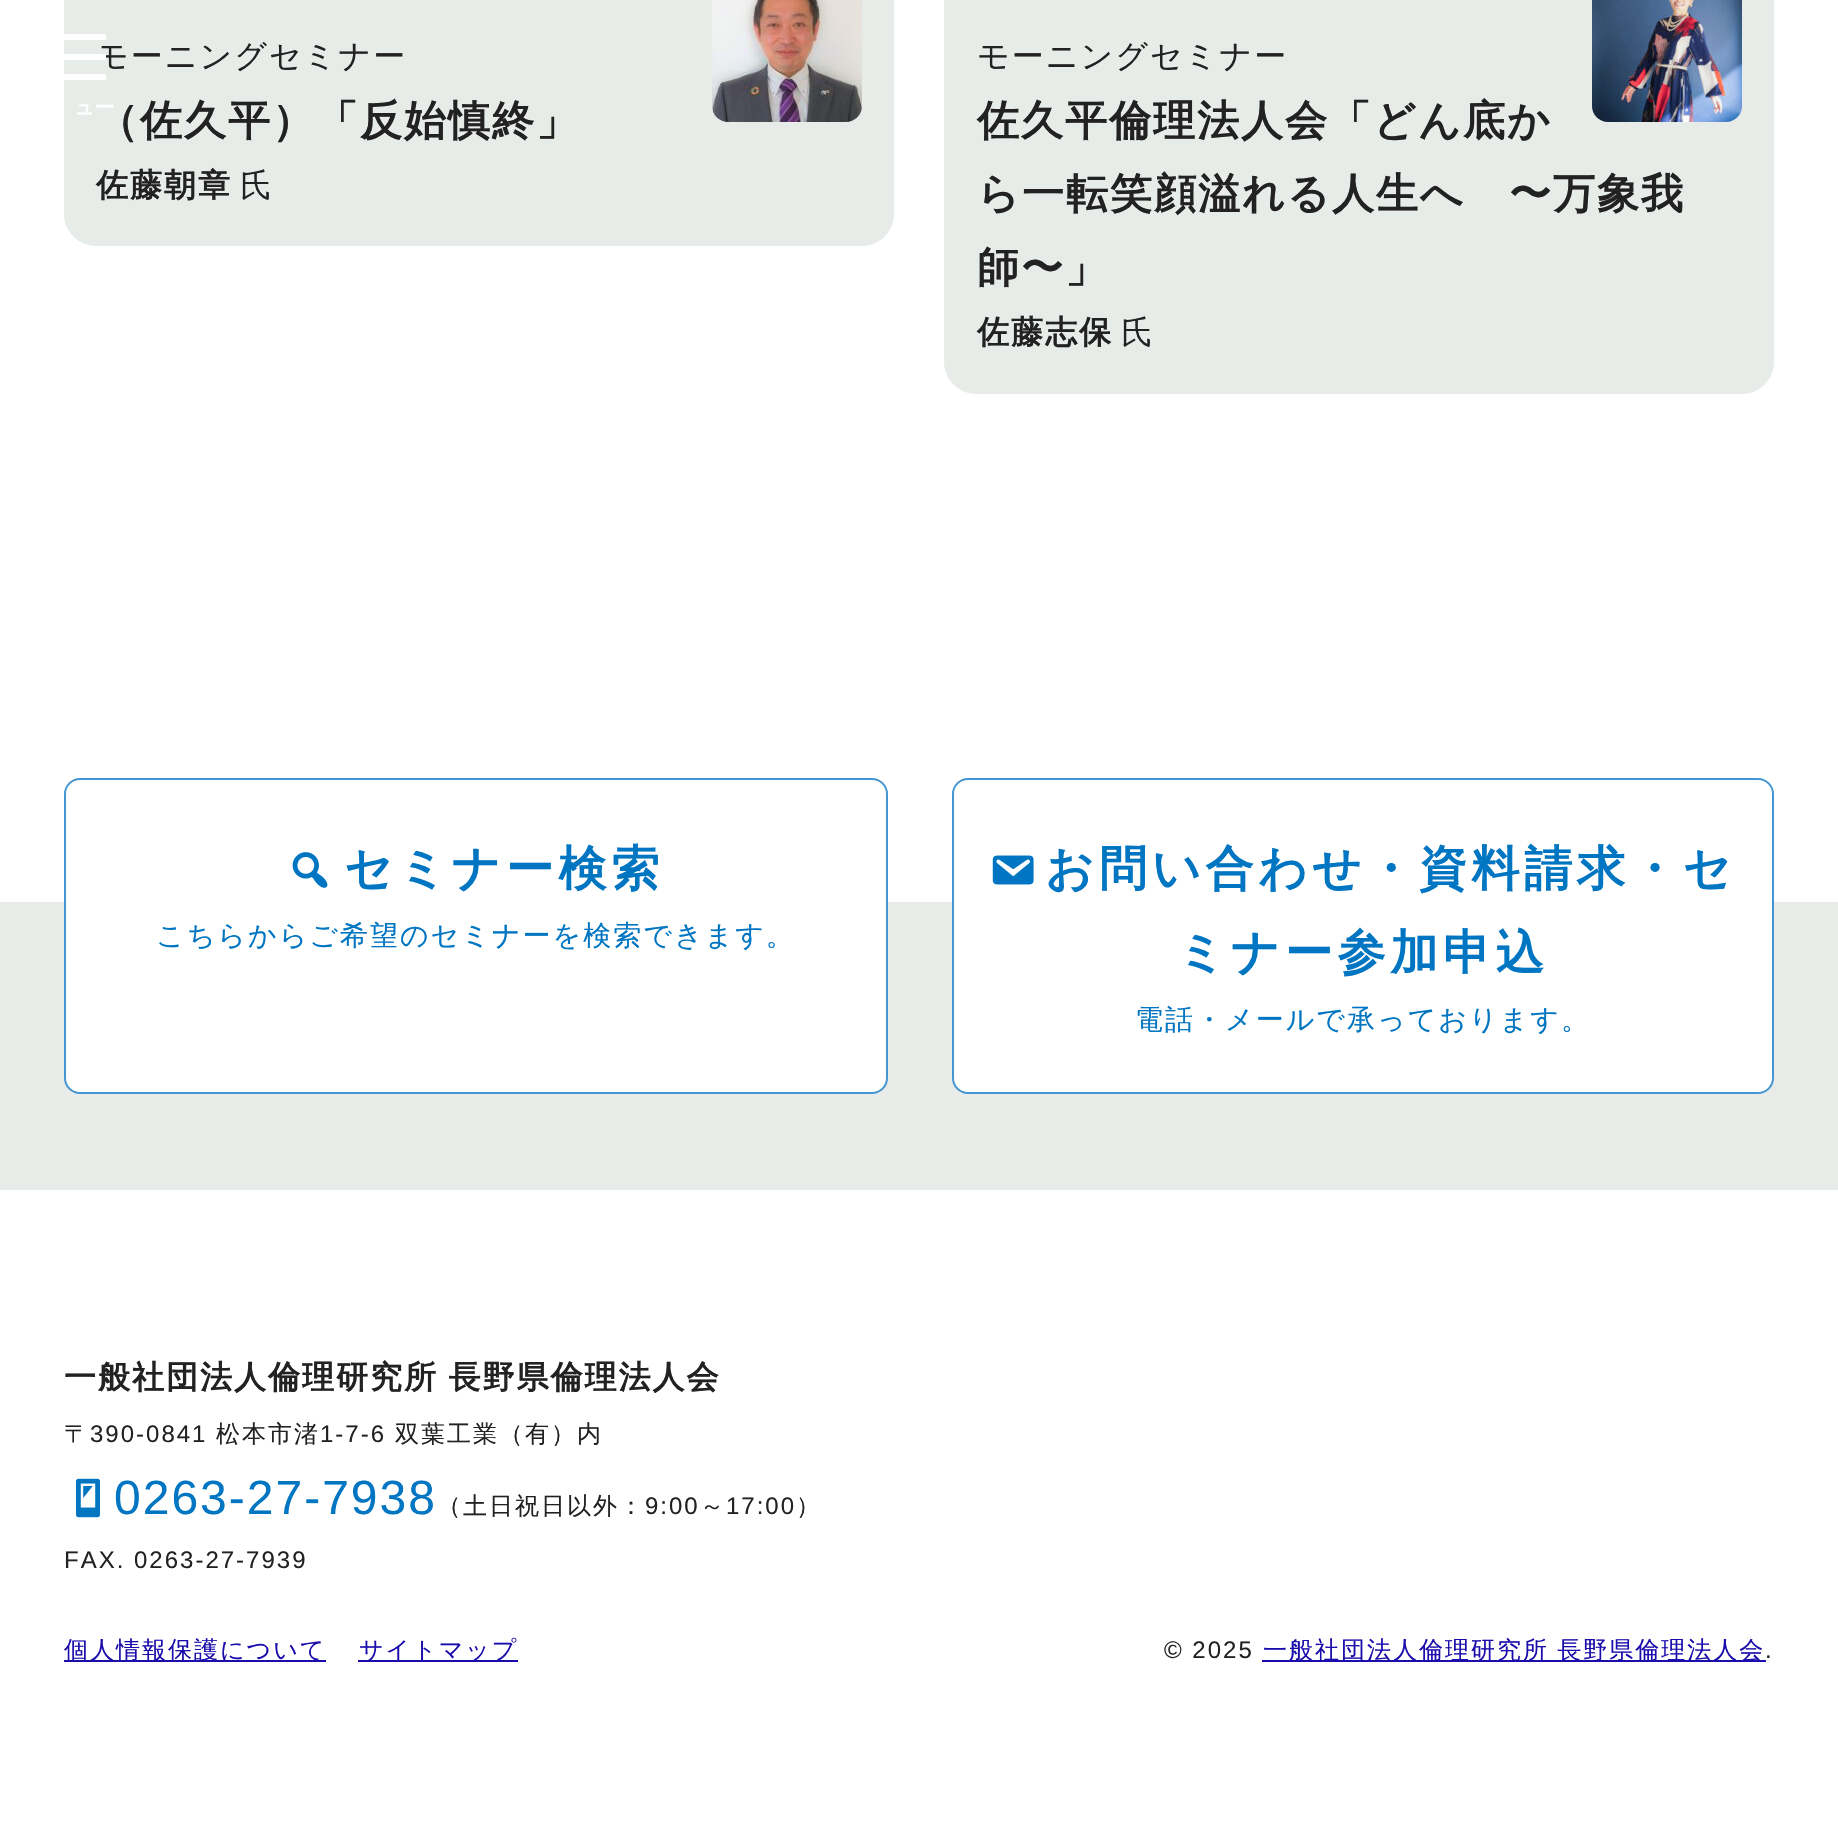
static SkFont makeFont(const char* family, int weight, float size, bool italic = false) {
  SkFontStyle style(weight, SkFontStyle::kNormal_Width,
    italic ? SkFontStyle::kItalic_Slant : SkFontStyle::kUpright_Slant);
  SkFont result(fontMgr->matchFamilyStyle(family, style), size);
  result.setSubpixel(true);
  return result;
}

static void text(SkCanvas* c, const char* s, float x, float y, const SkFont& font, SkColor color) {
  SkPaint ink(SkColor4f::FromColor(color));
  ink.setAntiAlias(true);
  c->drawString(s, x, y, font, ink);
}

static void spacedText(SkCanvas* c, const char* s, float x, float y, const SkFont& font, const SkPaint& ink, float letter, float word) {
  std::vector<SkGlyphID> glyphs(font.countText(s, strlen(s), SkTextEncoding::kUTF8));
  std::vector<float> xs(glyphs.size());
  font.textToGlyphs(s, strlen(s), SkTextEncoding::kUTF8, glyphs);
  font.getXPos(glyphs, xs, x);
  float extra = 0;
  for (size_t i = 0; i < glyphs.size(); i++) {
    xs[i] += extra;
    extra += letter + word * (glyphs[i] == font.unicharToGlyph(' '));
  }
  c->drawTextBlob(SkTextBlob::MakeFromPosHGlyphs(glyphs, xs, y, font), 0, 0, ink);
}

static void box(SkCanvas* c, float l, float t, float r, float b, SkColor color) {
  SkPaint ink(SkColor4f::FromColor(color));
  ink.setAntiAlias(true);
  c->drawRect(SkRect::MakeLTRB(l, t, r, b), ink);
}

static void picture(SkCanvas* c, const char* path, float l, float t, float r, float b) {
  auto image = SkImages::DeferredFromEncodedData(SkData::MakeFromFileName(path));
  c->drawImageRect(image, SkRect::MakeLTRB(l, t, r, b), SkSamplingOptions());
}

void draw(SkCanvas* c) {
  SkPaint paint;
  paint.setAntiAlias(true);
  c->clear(0xffffffff);
  paint.setColor(0xffe8ece9);
  c->drawPath(SkPathBuilder().moveTo(64, -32).lineTo(894, -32).lineTo(894, 214).cubicTo(894, 231.5f, 879.5f, 246, 862, 246).lineTo(96, 246).cubicTo(78.5f, 246, 64, 231.5f, 64, 214).close().detach(), paint);
  SkFont face1 = makeFont("WenQuanYi Zen Hei", 500, 32);
  paint.setColor(0xff222222);
  spacedText(c, "モーニングセミナー", 96, 67, face1, paint, 2, 0);
  picture(c, "img_01.png", 712, 0, 862, 122);
  SkFont face2 = makeFont("WenQuanYi Zen Hei", 700, 42);
  spacedText(c, "（佐久平）「反始慎終」", 96, 135, face2, paint, 2, 0);
  SkFont face3 = makeFont("WenQuanYi Zen Hei", 700, 32);
  spacedText(c, "佐藤朝章", 96, 196, face3, paint, 2, 0);
  spacedText(c, "氏", 240, 196, face1, paint, 2, 0);
  paint.setColor(0xffe8ece9);
  c->drawPath(SkPathBuilder().moveTo(944, -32).lineTo(1774, -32).lineTo(1774, 362).cubicTo(1774, 379.5f, 1759.5f, 394, 1742, 394).lineTo(976, 394).cubicTo(958.5f, 394, 944, 379.5f, 944, 362).close().detach(), paint);
  paint.setColor(0xff222222);
  spacedText(c, "モーニングセミナー", 977, 67, face1, paint, 2, 0);
  picture(c, "img_02.png", 1592, 0, 1742, 122);
  spacedText(c, "佐久平倫理法人会「どん底か", 977, 135, face2, paint, 2, 0);
  spacedText(c, "ら一転笑顔溢れる人生へ　〜万象我", 977, 208, face2, paint, 2, 0);
  spacedText(c, "師〜」", 977, 282, face2, paint, 2, 0);
  spacedText(c, "佐藤志保", 977, 343, face3, paint, 2, 0);
  spacedText(c, "氏", 1121, 343, face1, paint, 2, 0);
  box(c, 0, 902, 1838, 1190, 0xffe8ece9);
  paint.setColor(0xffffffff);
  c->drawRoundRect(SkRect::MakeLTRB(65, 779, 887, 1093), 15, 15, paint);
  paint.setStyle(SkPaint::kStroke_Style);
  paint.setStrokeWidth(2);
  paint.setColor(0xff4496d3);
  c->drawRoundRect(SkRect::MakeLTRB(65, 779, 887, 1093), 15, 15, paint);
  picture(c, "img_03.png", 292, 852, 328, 888);
  SkFont face4 = makeFont("WenQuanYi Zen Hei", 700, 48);
  paint.setStyle(SkPaint::kFill_Style);
  paint.setColor(0xff0075c2);
  spacedText(c, "セミナー検索", 344, 885, face4, paint, 4.75f, 0);
  SkFont face5 = makeFont("WenQuanYi Zen Hei", 500, 28);
  spacedText(c, "こちらからご希望のセミナーを検索できます。", 156, 945, face5, paint, 2, 0);
  paint.setColor(0xffffffff);
  c->drawRoundRect(SkRect::MakeLTRB(953, 779, 1773, 1093), 15, 15, paint);
  paint.setStyle(SkPaint::kStroke_Style);
  paint.setColor(0xff4496d3);
  c->drawRoundRect(SkRect::MakeLTRB(953, 779, 1773, 1093), 15, 15, paint);
  picture(c, "img_04.png", 992, 855, 1034, 885);
  paint.setStyle(SkPaint::kFill_Style);
  paint.setColor(0xff0075c2);
  spacedText(c, "お問い合わせ・資料請求・セ", 1045, 885, face4, paint, 4.75f, 0);
  spacedText(c, "ミナー参加申込", 1177, 969, face4, paint, 4.75f, 0);
  spacedText(c, "電話・メールで承っております。", 1135, 1029, face5, paint, 2, 0);
  paint.setColor(0xff222222);
  spacedText(c, "一般社団法人倫理研究所 長野県倫理法人会", 64, 1388, face3, paint, 2, -1);
  SkFont face6 = makeFont("WenQuanYi Zen Hei", 500, 24);
  spacedText(c, "〒", 64, 1442, face6, paint, 2, 0);
  SkFont face7 = makeFont("Liberation Sans", 400, 24);
  spacedText(c, "390-0841", 90, 1442, face7, paint, 2, 0);
  spacedText(c, "松本市渚", 216, 1442, face6, paint, 2, 0);
  spacedText(c, "1-7-6", 320, 1442, face7, paint, 2, 0);
  spacedText(c, "双葉工業（有）内", 395, 1442, face6, paint, 2, 0);
  picture(c, "img_05.png", 76, 1478, 100, 1518);
  SkFont face8 = makeFont("Liberation Sans", 400, 48);
  paint.setColor(0xff0075c2);
  spacedText(c, "0263-27-7938", 114, 1514, face8, paint, 2, 0);
  paint.setColor(0xff222222);
  spacedText(c, "（土日祝日以外：", 437, 1514, face6, paint, 2, 0);
  spacedText(c, "9:00", 645, 1514, face7, paint, 2, 0);
  spacedText(c, "～", 700, 1514, face6, paint, 2, 0);
  spacedText(c, "17:00", 726, 1514, face7, paint, 2, 0);
  spacedText(c, "）", 796, 1514, face6, paint, 2, 0);
  spacedText(c, "FAX. 0263-27-7939", 64, 1568, face7, paint, 2, 0);
  box(c, 64, 1660, 326, 1662, 0xff1a0dab);
  paint.setColor(0xff1a0dab);
  spacedText(c, "個人情報保護について", 64, 1658, face6, paint, 2, 0);
  box(c, 358, 1660, 518, 1662, 0xff1a0dab);
  spacedText(c, "サイトマップ", 359, 1658, face6, paint, 2, 0);
  paint.setColor(0xff222222);
  spacedText(c, "© 2025", 1164, 1658, face7, paint, 2, 0);
  box(c, 1262, 1660, 1766, 1662, 0xff1a0dab);
  paint.setColor(0xff1a0dab);
  spacedText(c, "一般社団法人倫理研究所 長野県倫理法人会", 1263, 1658, face6, paint, 2, -1);
  paint.setColor(0xff222222);
  spacedText(c, ".", 1765, 1658, face7, paint, 2, 0);
  box(c, 64, 54, 106, 60, 0xffffffff);
  box(c, 64, 34, 106, 40, 0xffffffff);
  box(c, 64, 74, 106, 80, 0xffffffff);
  SkFont face9 = makeFont("WenQuanYi Zen Hei", 700, 20);
  text(c, "ュー", 74, 114, face9, 0xffffffff);
}
